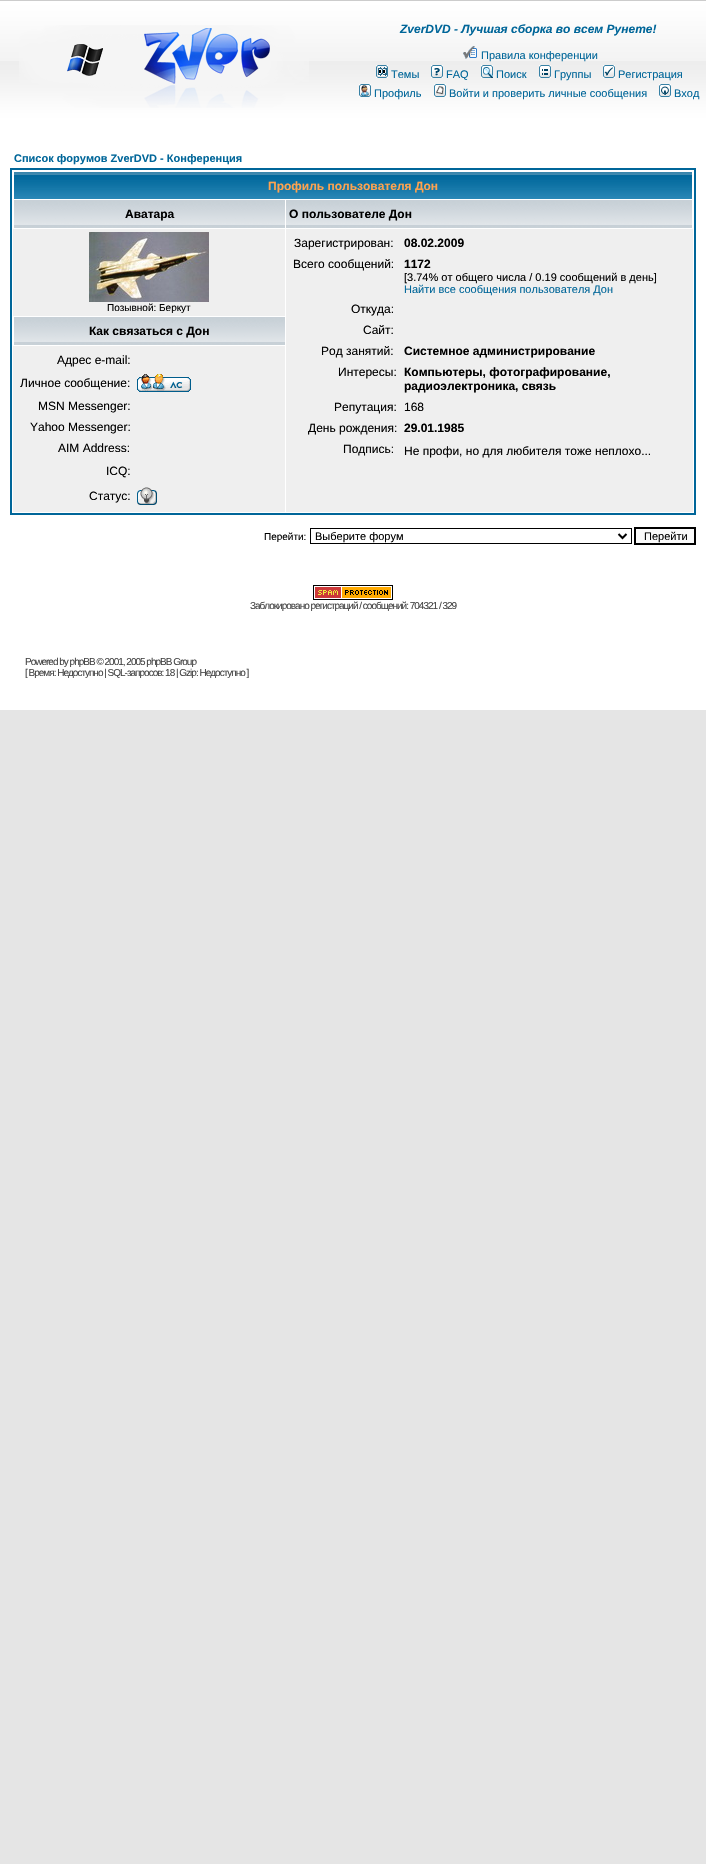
static SkFont makeFont(const char* family, int weight, float size, bool italic = false) {
  SkFontStyle style(weight, SkFontStyle::kNormal_Width,
    italic ? SkFontStyle::kItalic_Slant : SkFontStyle::kUpright_Slant);
  SkFont result(fontMgr->matchFamilyStyle(family, style), size);
  result.setSubpixel(true);
  return result;
}

static void text(SkCanvas* c, const char* s, float x, float y, const SkFont& font, SkColor color) {
  SkPaint ink(SkColor4f::FromColor(color));
  ink.setAntiAlias(true);
  c->drawString(s, x, y, font, ink);
}

static void spacedText(SkCanvas* c, const char* s, float x, float y, const SkFont& font, const SkPaint& ink, float letter, float word) {
  std::vector<SkGlyphID> glyphs(font.countText(s, strlen(s), SkTextEncoding::kUTF8));
  std::vector<float> xs(glyphs.size());
  font.textToGlyphs(s, strlen(s), SkTextEncoding::kUTF8, glyphs);
  font.getXPos(glyphs, xs, x);
  float extra = 0;
  for (size_t i = 0; i < glyphs.size(); i++) {
    xs[i] += extra;
    extra += letter + word * (glyphs[i] == font.unicharToGlyph(' '));
  }
  c->drawTextBlob(SkTextBlob::MakeFromPosHGlyphs(glyphs, xs, y, font), 0, 0, ink);
}

static void box(SkCanvas* c, float l, float t, float r, float b, SkColor color) {
  SkPaint ink(SkColor4f::FromColor(color));
  ink.setAntiAlias(true);
  c->drawRect(SkRect::MakeLTRB(l, t, r, b), ink);
}

static void picture(SkCanvas* c, const char* path, float l, float t, float r, float b) {
  auto image = SkImages::DeferredFromEncodedData(SkData::MakeFromFileName(path));
  c->drawImageRect(image, SkRect::MakeLTRB(l, t, r, b), SkSamplingOptions());
}

void draw(SkCanvas* c) {
  SkPaint paint;
  paint.setAntiAlias(true);
  c->clear(0xffe5e5e5);
  picture(c, "img_01.png", 0, 0, 706, 120);
  picture(c, "img_02.png", 19, 25, 309, 108);
  SkFont face1 = makeFont("Liberation Sans", 700, 12, true);
  text(c, "ZverDVD - Лучшая сборка во всем Рунете!", 400, 33, face1, 0xff006699);
  picture(c, "img_03.png", 463, 46, 477, 59);
  SkFont face2 = makeFont("Liberation Sans", 400, 11);
  text(c, "Правила конференции", 481, 59, face2, 0xff006699);
  picture(c, "img_04.png", 376, 65, 388, 78);
  text(c, "Темы", 391, 78, face2, 0xff006699);
  picture(c, "img_05.png", 431, 65, 443, 78);
  text(c, "FAQ", 446, 78, face2, 0xff006699);
  picture(c, "img_06.png", 481, 65, 493, 78);
  text(c, "Поиск", 496, 78, face2, 0xff006699);
  picture(c, "img_07.png", 539, 65, 551, 78);
  text(c, "Группы", 554, 78, face2, 0xff006699);
  picture(c, "img_08.png", 603, 65, 615, 78);
  text(c, "Регистрация", 618, 78, face2, 0xff006699);
  picture(c, "img_09.png", 359, 84, 371, 97);
  text(c, "Профиль", 374, 97, face2, 0xff006699);
  picture(c, "img_10.png", 434, 84, 446, 97);
  text(c, "Войти и проверить личные сообщения", 449, 97, face2, 0xff006699);
  picture(c, "img_11.png", 659, 84, 671, 97);
  text(c, "Вход", 674, 97, face2, 0xff006699);
  box(c, 0, 120, 706, 710, 0xffffffff);
  SkFont face3 = makeFont("Liberation Sans", 700, 11);
  text(c, "Список форумов ZverDVD - Конференция", 14, 162, face3, 0xff006699);
  paint.setStyle(SkPaint::kStroke_Style);
  paint.setStrokeWidth(2);
  paint.setColor(0xff006699);
  c->drawRect(SkRect::MakeLTRB(11, 169, 695, 514), paint);
  picture(c, "img_12.png", 14, 172, 692, 199);
  SkFont face4 = makeFont("Liberation Sans", 700, 12);
  text(c, "Профиль пользователя Дон", 268, 190, face4, 0xffffa34f);
  picture(c, "img_13.png", 14, 200, 285, 228);
  text(c, "Аватара", 125, 218, face4, 0xff000000);
  picture(c, "img_14.png", 286, 200, 692, 228);
  text(c, "О пользователе Дон", 289, 218, face4, 0xff000000);
  box(c, 13, 229, 285, 316, 0xffefefef);
  picture(c, "img_15.png", 89, 232, 209, 302);
  SkFont face5 = makeFont("Liberation Sans", 400, 10);
  text(c, "Позывной: Беркут", 107, 311, face5, 0xff000000);
  box(c, 286, 229, 693, 512, 0xffefefef);
  SkFont face6 = makeFont("Liberation Sans", 400, 12);
  text(c, "Зарегистрирован:", 294, 247, face6, 0xff000000);
  text(c, "08.02.2009", 404, 247, face4, 0xff000000);
  text(c, "Всего сообщений:", 293, 268, face6, 0xff000000);
  text(c, "1172", 404, 268, face4, 0xff000000);
  text(c, "[3.74% от общего числа / 0.19 сообщений в день]", 404, 281, face2, 0xff000000);
  text(c, "Найти все сообщения пользователя Дон", 404, 293, face2, 0xff006699);
  text(c, "Откуда:", 351, 313, face6, 0xff000000);
  text(c, "Сайт:", 363, 334, face6, 0xff000000);
  text(c, "Род занятий:", 321, 355, face6, 0xff000000);
  text(c, "Системное администрирование", 404, 355, face4, 0xff000000);
  text(c, "Интересы:", 338, 376, face6, 0xff000000);
  text(c, "Компьютеры, фотографирование,", 404, 376, face4, 0xff000000);
  text(c, "радиоэлектроника, связь", 404, 390, face4, 0xff000000);
  text(c, "Репутация:", 334, 411, face6, 0xff000000);
  text(c, "168", 404, 411, face6, 0xff000000);
  text(c, "День рождения:", 308, 432, face6, 0xff000000);
  text(c, "29.01.1985", 404, 432, face4, 0xff000000);
  text(c, "Подпись:", 343, 453, face6, 0xff000000);
  text(c, "Не профи, но для любителя тоже неплохо...", 404, 455, face6, 0xff000000);
  picture(c, "img_13.png", 14, 317, 285, 345);
  text(c, "Как связаться с Дон", 89, 335, face4, 0xff000000);
  box(c, 13, 346, 285, 512, 0xffefefef);
  text(c, "Адрес e-mail:", 57, 364, face6, 0xff000000);
  text(c, "Личное сообщение:", 20, 387, face6, 0xff000000);
  picture(c, "img_16.png", 137, 374, 191, 392);
  text(c, "MSN Messenger:", 38, 410, face6, 0xff000000);
  text(c, "Yahoo Messenger:", 30, 431, face6, 0xff000000);
  text(c, "AIM Address:", 58, 452, face6, 0xff000000);
  text(c, "ICQ:", 106, 475, face6, 0xff000000);
  text(c, "Статус:", 89, 500, face6, 0xff000000);
  picture(c, "img_17.png", 137, 487, 157, 505);
  text(c, "Перейти:", 264, 540, face5, 0xff000000);
  paint.setStrokeWidth(1);
  paint.setColor(0xff000000);
  c->drawRect(SkRect::MakeLTRB(310.5f, 528.5f, 631.5f, 543.5f), paint);
  paint.setStrokeWidth(2);
  c->drawPath(SkPathBuilder().moveTo(618.5f, 534).lineTo(622.5f, 538).lineTo(626.5f, 534).detach(), paint);
  text(c, "Выберите форум", 315, 540, face2, 0xff000000);
  paint.setStyle(SkPaint::kFill_Style);
  paint.setColor(0xfffafafa);
  c->drawRect(SkRect::MakeLTRB(635, 528, 695, 544), paint);
  paint.setStyle(SkPaint::kStroke_Style);
  paint.setColor(0xff000000);
  c->drawRect(SkRect::MakeLTRB(635, 528, 695, 544), paint);
  text(c, "Перейти", 644, 540, face2, 0xff000000);
  picture(c, "img_18.png", 313, 585, 393, 600);
  paint.setStyle(SkPaint::kFill_Style);
  paint.setColor(0xff444444);
  spacedText(c, "Заблокировано регистраций / сообщений: 704321 / 329", 250, 609, face5, paint, -1, 0);
  spacedText(c, "Powered by phpBB © 2001, 2005 phpBB Group", 25, 665, face5, paint, -1, 0);
  spacedText(c, "[ Время: Недоступно | SQL-запросов: 18 | Gzip: Недоступно ]", 25, 676, face5, paint, -1, 0);
}
